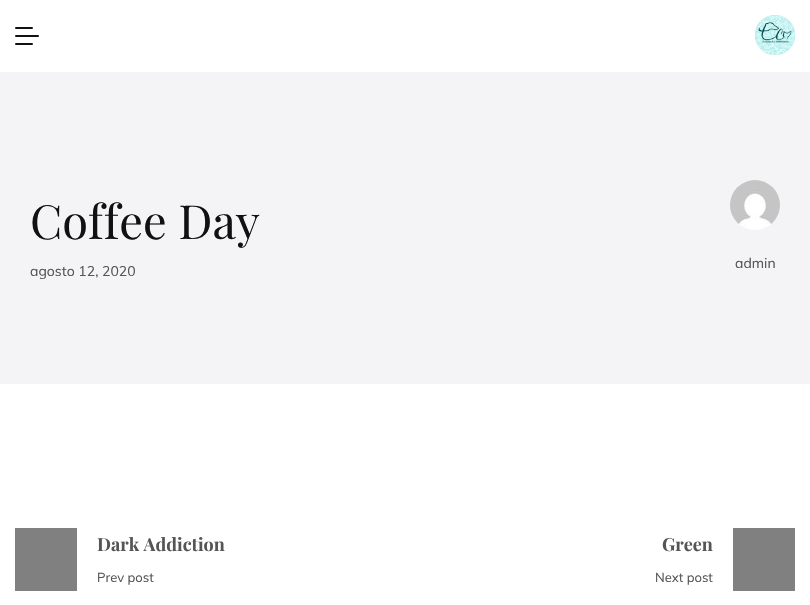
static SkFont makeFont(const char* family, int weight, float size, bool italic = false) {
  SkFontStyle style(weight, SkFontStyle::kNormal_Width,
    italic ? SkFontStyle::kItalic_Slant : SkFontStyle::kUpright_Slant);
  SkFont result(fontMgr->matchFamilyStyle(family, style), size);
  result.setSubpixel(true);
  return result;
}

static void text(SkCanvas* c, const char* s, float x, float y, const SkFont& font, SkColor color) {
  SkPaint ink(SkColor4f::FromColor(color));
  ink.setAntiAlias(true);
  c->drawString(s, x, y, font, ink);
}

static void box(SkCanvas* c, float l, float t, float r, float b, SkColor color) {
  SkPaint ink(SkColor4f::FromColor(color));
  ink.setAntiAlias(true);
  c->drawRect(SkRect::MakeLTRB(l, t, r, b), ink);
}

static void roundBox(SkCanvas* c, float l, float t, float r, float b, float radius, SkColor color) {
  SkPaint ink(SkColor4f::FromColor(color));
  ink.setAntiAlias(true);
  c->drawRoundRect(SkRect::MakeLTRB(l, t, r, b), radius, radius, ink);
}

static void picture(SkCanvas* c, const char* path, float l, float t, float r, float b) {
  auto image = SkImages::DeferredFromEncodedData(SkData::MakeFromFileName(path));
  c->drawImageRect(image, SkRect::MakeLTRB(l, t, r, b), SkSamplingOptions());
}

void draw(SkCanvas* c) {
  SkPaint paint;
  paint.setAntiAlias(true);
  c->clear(0xffffffff);
  roundBox(c, 15, 35, 39, 37, 1, 0xff111111);
  roundBox(c, 15, 27, 33, 29, 1, 0xff111111);
  roundBox(c, 15, 43, 33, 45, 1, 0xff111111);
  picture(c, "img_01.png", 755, 15, 795, 55);
  box(c, 0, 72, 810, 384, 0xfff4f4f6);
  SkFont face1 = makeFont("Playfair Display", 400, 47);
  text(c, "Coffee Day", 30, 239, face1, 0xff111111);
  SkFont face2 = makeFont("Muli", 400, 14);
  text(c, "agosto 12, 2020", 30, 276, face2, 0xff555556);
  picture(c, "img_02.png", 730, 180, 780, 230);
  text(c, "admin", 735, 268, face2, 0xff555556);
  box(c, 15, 528, 77, 591, 0xff808080);
  SkFont face3 = makeFont("Playfair Display", 700, 18);
  text(c, "Dark Addiction", 97, 551, face3, 0xff555556);
  SkFont face4 = makeFont("Muli", 400, 13);
  text(c, "Prev post", 97, 582, face4, 0xff555556);
  text(c, "Green", 662, 551, face3, 0xff555556);
  text(c, "Next post", 655, 582, face4, 0xff555556);
  box(c, 733, 528, 795, 591, 0xff808080);
}
